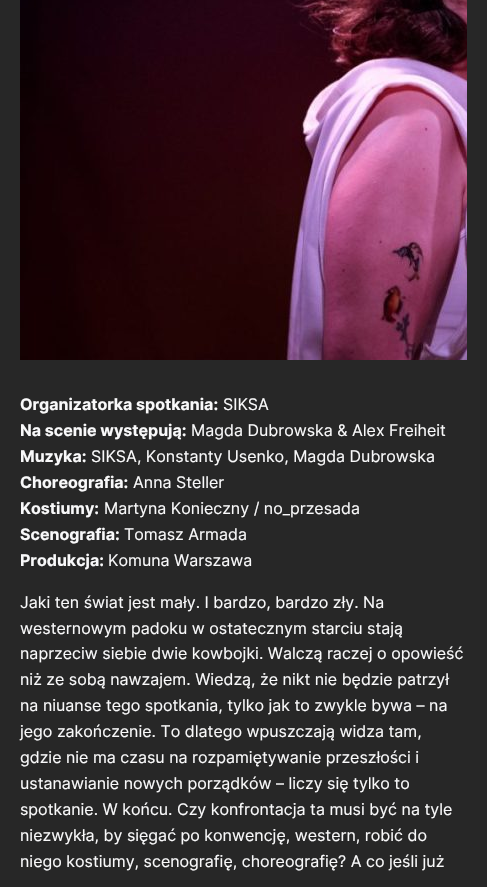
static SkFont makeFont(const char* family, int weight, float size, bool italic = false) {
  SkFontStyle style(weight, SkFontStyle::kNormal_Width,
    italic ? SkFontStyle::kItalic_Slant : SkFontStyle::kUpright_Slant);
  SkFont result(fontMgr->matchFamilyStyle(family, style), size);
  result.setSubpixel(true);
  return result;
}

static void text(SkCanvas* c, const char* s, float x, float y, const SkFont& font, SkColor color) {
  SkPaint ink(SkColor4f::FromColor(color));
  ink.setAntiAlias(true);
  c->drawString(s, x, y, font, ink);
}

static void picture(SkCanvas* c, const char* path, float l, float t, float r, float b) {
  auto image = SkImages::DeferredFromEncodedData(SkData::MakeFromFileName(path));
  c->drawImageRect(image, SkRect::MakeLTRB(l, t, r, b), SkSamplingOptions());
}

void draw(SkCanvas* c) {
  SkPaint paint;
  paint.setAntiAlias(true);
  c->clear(0xff272727);
  picture(c, "img_01.png", 20, 0, 467, 360);
  SkFont face1 = makeFont("Inter", 700, 16);
  text(c, "Organizatorka spotkania:", 20, 410, face1, 0xfff9f9fa);
  SkFont face2 = makeFont("Inter", 400, 16);
  text(c, "SIKSA", 223, 410, face2, 0xfff9f9fa);
  text(c, "Na scenie występują:", 20, 436, face1, 0xfff9f9fa);
  text(c, "Magda Dubrowska & Alex Freiheit", 191, 436, face2, 0xfff9f9fa);
  text(c, "Muzyka:", 20, 462, face1, 0xfff9f9fa);
  text(c, "SIKSA, Konstanty Usenko, Magda Dubrowska", 91, 462, face2, 0xfff9f9fa);
  text(c, "Choreografia:", 20, 488, face1, 0xfff9f9fa);
  text(c, "Anna Steller", 133, 488, face2, 0xfff9f9fa);
  text(c, "Kostiumy:", 20, 514, face1, 0xfff9f9fa);
  text(c, "Martyna Konieczny / no_przesada", 104, 514, face2, 0xfff9f9fa);
  text(c, "Scenografia:", 20, 540, face1, 0xfff9f9fa);
  text(c, "Tomasz Armada", 124, 540, face2, 0xfff9f9fa);
  text(c, "Produkcja:", 20, 566, face1, 0xfff9f9fa);
  text(c, "Komuna Warszawa", 108, 566, face2, 0xfff9f9fa);
  text(c, "Jaki ten świat jest mały. I bardzo, bardzo zły. Na", 20, 608, face2, 0xfff9f9fa);
  text(c, "westernowym padoku w ostatecznym starciu stają", 20, 634, face2, 0xfff9f9fa);
  text(c, "naprzeciw siebie dwie kowbojki. Walczą raczej o opowieść", 20, 659, face2, 0xfff9f9fa);
  text(c, "niż ze sobą nawzajem. Wiedzą, że nikt nie będzie patrzył", 20, 685, face2, 0xfff9f9fa);
  text(c, "na niuanse tego spotkania, tylko jak to zwykle bywa – na", 20, 711, face2, 0xfff9f9fa);
  text(c, "jego zakończenie. To dlatego wpuszczają widza tam,", 20, 737, face2, 0xfff9f9fa);
  text(c, "gdzie nie ma czasu na rozpamiętywanie przeszłości i", 20, 763, face2, 0xfff9f9fa);
  text(c, "ustanawianie nowych porządków – liczy się tylko to", 20, 789, face2, 0xfff9f9fa);
  text(c, "spotkanie. W końcu. Czy konfrontacja ta musi być na tyle", 20, 815, face2, 0xfff9f9fa);
  text(c, "niezwykła, by sięgać po konwencję, western, robić do", 20, 841, face2, 0xfff9f9fa);
  text(c, "niego kostiumy, scenografię, choreografię? A co jeśli już", 20, 867, face2, 0xfff9f9fa);
}
